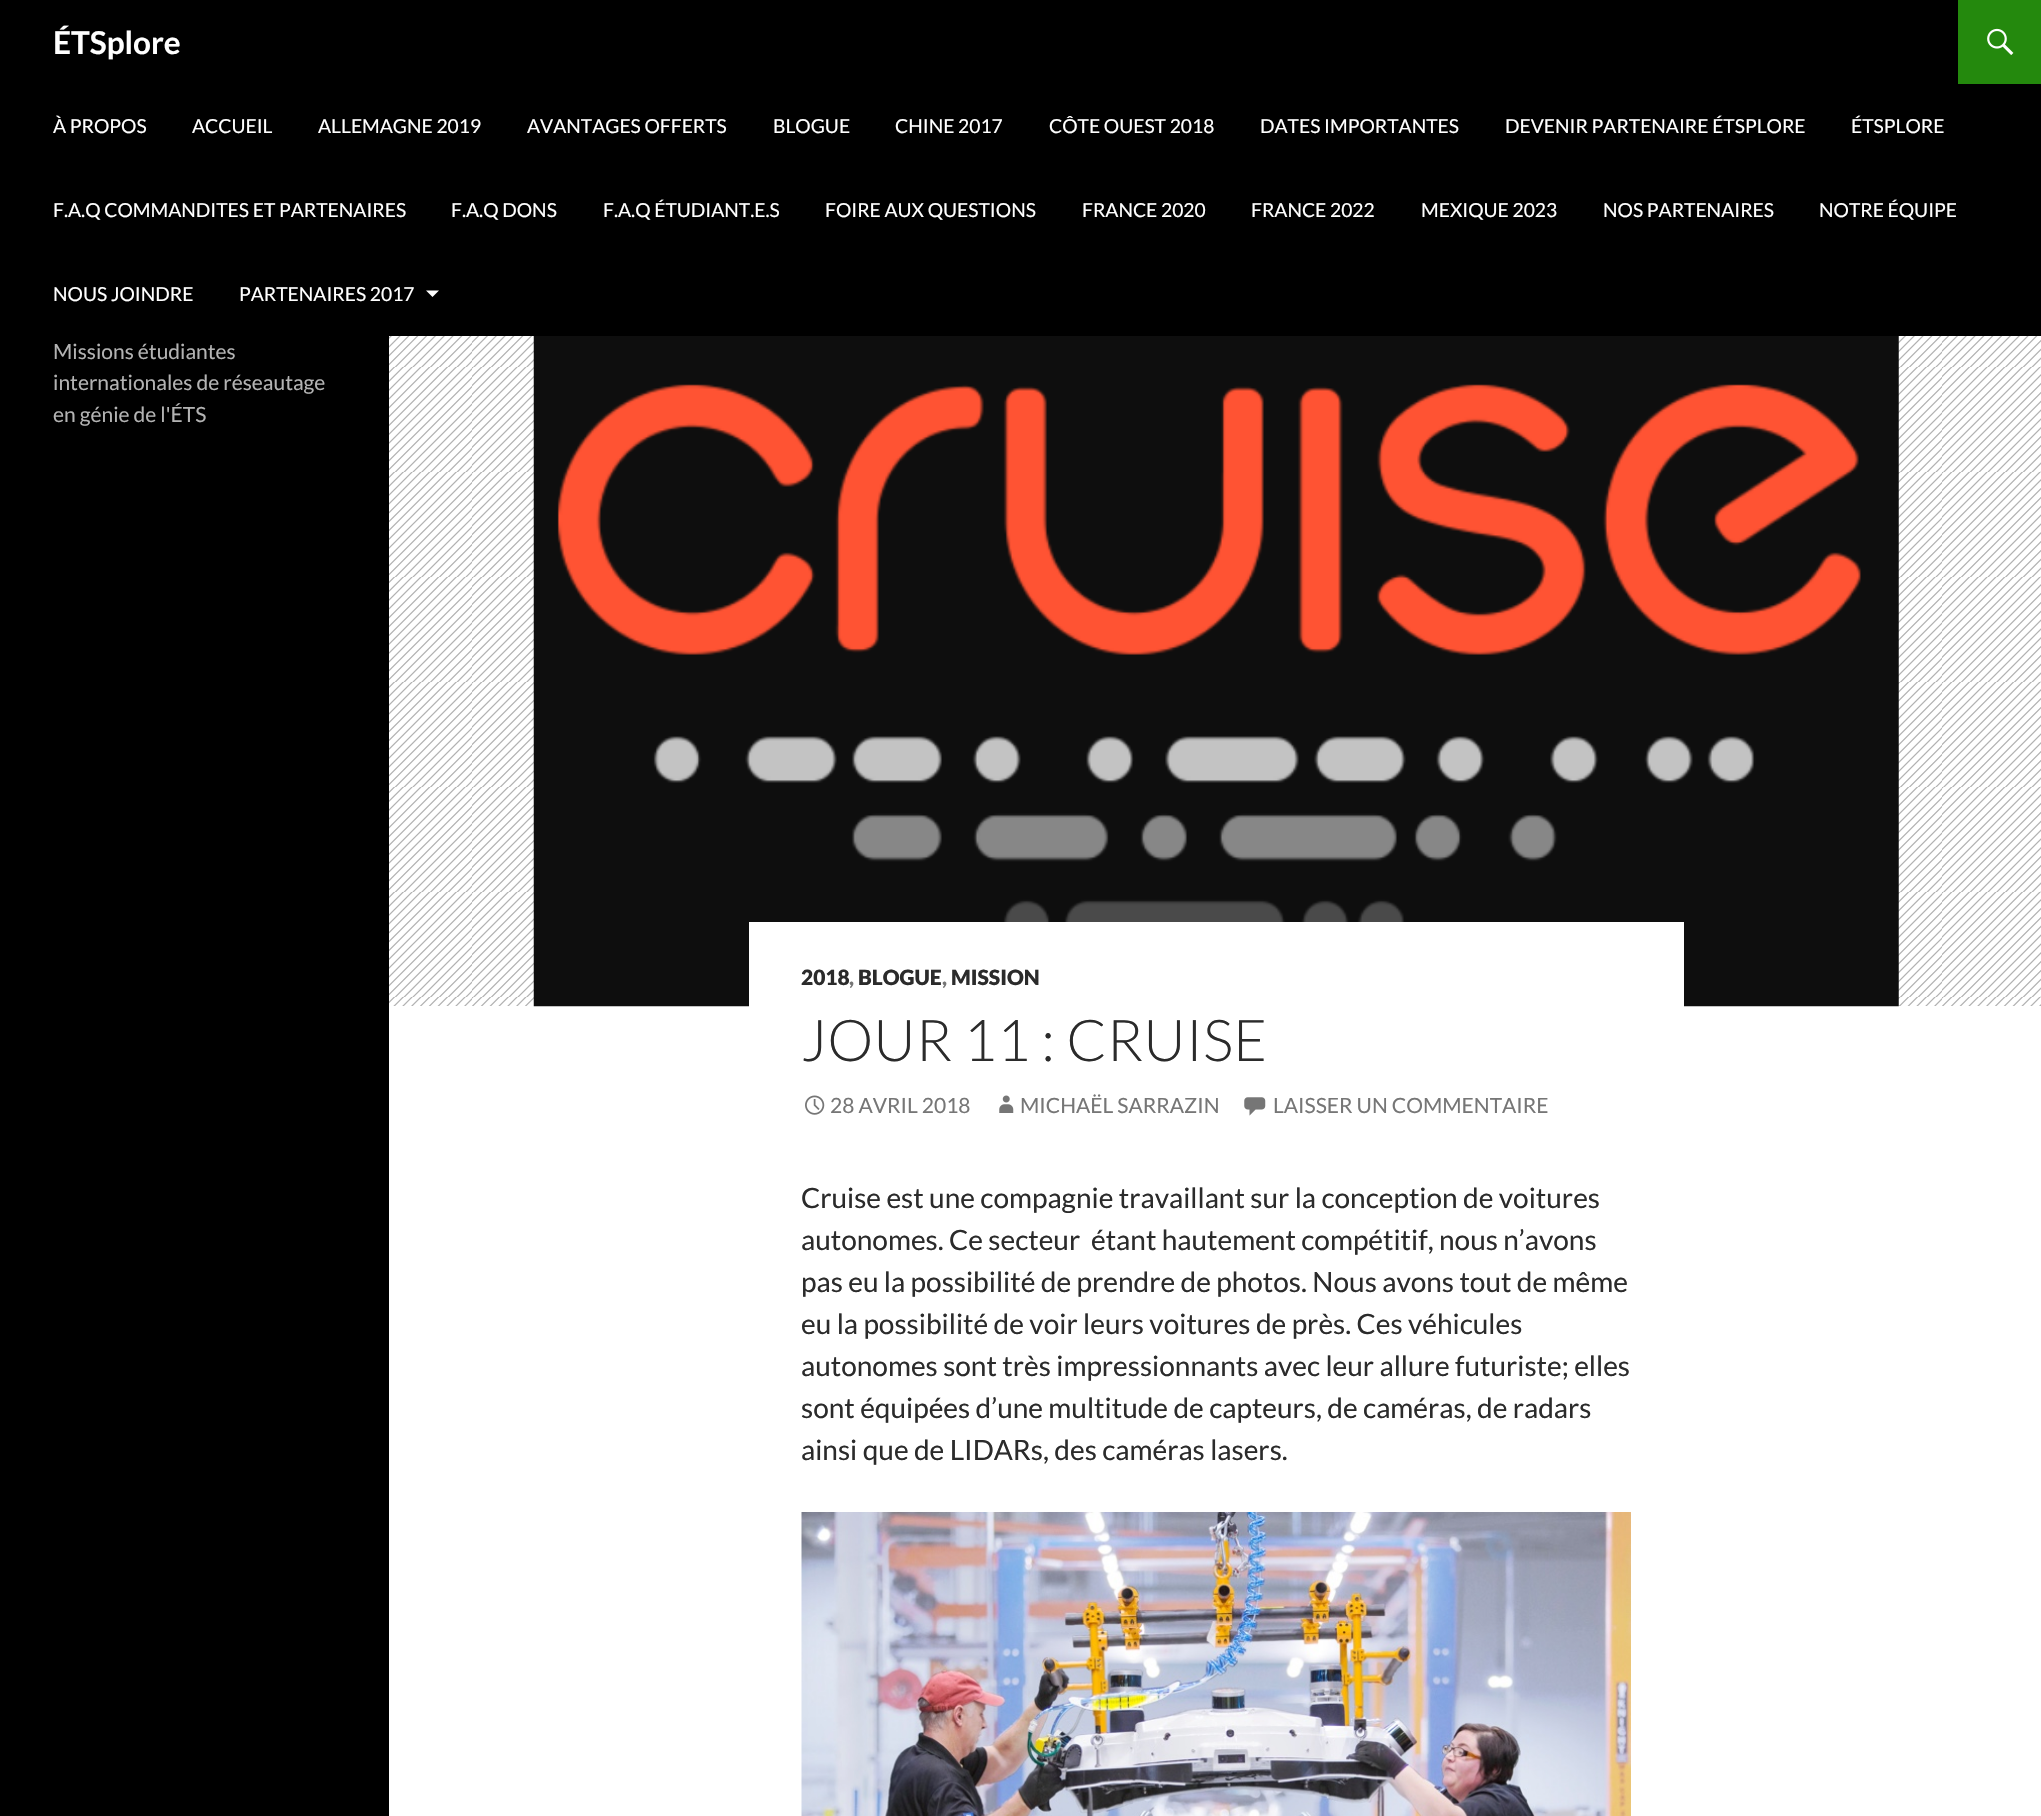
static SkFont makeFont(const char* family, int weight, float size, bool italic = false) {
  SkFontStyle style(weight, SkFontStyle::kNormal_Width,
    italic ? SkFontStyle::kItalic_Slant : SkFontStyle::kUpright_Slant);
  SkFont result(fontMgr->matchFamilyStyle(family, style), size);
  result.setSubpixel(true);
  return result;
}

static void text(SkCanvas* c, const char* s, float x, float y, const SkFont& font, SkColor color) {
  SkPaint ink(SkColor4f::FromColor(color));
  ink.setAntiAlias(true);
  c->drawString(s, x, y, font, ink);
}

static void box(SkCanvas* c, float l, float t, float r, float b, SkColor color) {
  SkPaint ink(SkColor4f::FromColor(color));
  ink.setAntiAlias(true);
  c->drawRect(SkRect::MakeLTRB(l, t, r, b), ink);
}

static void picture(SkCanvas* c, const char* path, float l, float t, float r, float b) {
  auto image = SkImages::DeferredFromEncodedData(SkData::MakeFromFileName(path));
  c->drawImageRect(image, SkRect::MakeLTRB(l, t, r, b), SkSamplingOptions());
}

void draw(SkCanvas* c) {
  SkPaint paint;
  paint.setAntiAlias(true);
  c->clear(0xffffffff);
  box(c, 0, 0, 2041, 336, 0xff000000);
  SkFont face1 = makeFont("Lato", 700, 31.5f);
  text(c, "ÉTSplore", 53, 54, face1, 0xffffffff);
  box(c, 1958, 0, 2041, 84, 0xff24890d);
  picture(c, "img_01.png", 1987, 28, 2014, 55);
  SkFont face2 = makeFont("Lato", 400, 19.25f);
  text(c, "À PROPOS", 53, 133, face2, 0xffffffff);
  text(c, "ACCUEIL", 192, 133, face2, 0xffffffff);
  text(c, "ALLEMAGNE 2019", 318, 133, face2, 0xffffffff);
  text(c, "AVANTAGES OFFERTS", 527, 133, face2, 0xffffffff);
  text(c, "BLOGUE", 773, 133, face2, 0xffffffff);
  text(c, "CHINE 2017", 895, 133, face2, 0xffffffff);
  text(c, "CÔTE OUEST 2018", 1049, 133, face2, 0xffffffff);
  text(c, "DATES IMPORTANTES", 1260, 133, face2, 0xffffffff);
  text(c, "DEVENIR PARTENAIRE ÉTSPLORE", 1505, 133, face2, 0xffffffff);
  text(c, "ÉTSPLORE", 1851, 133, face2, 0xffffffff);
  text(c, "F.A.Q COMMANDITES ET PARTENAIRES", 53, 217, face2, 0xffffffff);
  text(c, "F.A.Q DONS", 451, 217, face2, 0xffffffff);
  text(c, "F.A.Q ÉTUDIANT.E.S", 603, 217, face2, 0xffffffff);
  text(c, "FOIRE AUX QUESTIONS", 825, 217, face2, 0xffffffff);
  text(c, "FRANCE 2020", 1082, 217, face2, 0xffffffff);
  text(c, "FRANCE 2022", 1251, 217, face2, 0xffffffff);
  text(c, "MEXIQUE 2023", 1421, 217, face2, 0xffffffff);
  text(c, "NOS PARTENAIRES", 1603, 217, face2, 0xffffffff);
  text(c, "NOTRE ÉQUIPE", 1819, 217, face2, 0xffffffff);
  text(c, "NOUS JOINDRE", 53, 301, face2, 0xffffffff);
  text(c, "PARTENAIRES 2017", 239, 301, face2, 0xffffffff);
  paint.setColor(0xffffffff);
  c->drawPath(SkPathBuilder().moveTo(426, 290.5f).lineTo(432.5f, 297).lineTo(439, 290.5f).close().detach(), paint);
  box(c, 0, 336, 389, 1816, 0xff000000);
  SkFont face3 = makeFont("Lato", 400, 21);
  text(c, "Missions étudiantes", 53, 359, face3, 0xffb3b3b3);
  text(c, "internationales de réseautage", 53, 390, face3, 0xffb3b3b3);
  text(c, "en génie de l'ÉTS", 53, 422, face3, 0xffb3b3b3);
  box(c, 389, 336, 2041, 1006, 0xffb2b2b2);
  picture(c, "img_02.png", 389, 336, 2041, 1006);
  picture(c, "img_03.png", 533, 336, 1899, 1007);
  box(c, 749, 922, 1684, 1007, 0xffffffff);
  SkFont face4 = makeFont("Lato", 900, 21);
  text(c, "2018", 801, 985, face4, 0xff2b2b2b);
  text(c, ",", 849, 985, face4, 0xff767676);
  text(c, "BLOGUE", 858, 985, face4, 0xff2b2b2b);
  text(c, ",", 942, 985, face4, 0xff767676);
  text(c, "MISSION", 951, 985, face4, 0xff2b2b2b);
  SkFont face5 = makeFont("Lato", 300, 57.75f);
  text(c, "JOUR 11 : CRUISE", 801, 1061, face5, 0xff2b2b2b);
  picture(c, "img_04.png", 805, 1095, 825, 1115);
  text(c, "28 AVRIL 2018", 830, 1113, face3, 0xff767676);
  picture(c, "img_05.png", 999, 1095, 1014, 1113);
  text(c, "MICHAËL SARRAZIN", 1020, 1113, face3, 0xff767676);
  picture(c, "img_06.png", 1244, 1097, 1266, 1116);
  text(c, "LAISSER UN COMMENTAIRE", 1273, 1113, face3, 0xff767676);
  SkFont face6 = makeFont("Lato", 400, 28);
  text(c, "Cruise est une compagnie travaillant sur la conception de voitures", 801, 1208, face6, 0xff2b2b2b);
  text(c, "autonomes. Ce secteur  étant hautement compétitif, nous n’avons", 801, 1250, face6, 0xff2b2b2b);
  text(c, "pas eu la possibilité de prendre de photos. Nous avons tout de même", 801, 1292, face6, 0xff2b2b2b);
  text(c, "eu la possibilité de voir leurs voitures de près. Ces véhicules", 801, 1334, face6, 0xff2b2b2b);
  text(c, "autonomes sont très impressionnants avec leur allure futuriste; elles", 801, 1376, face6, 0xff2b2b2b);
  text(c, "sont équipées d’une multitude de capteurs, de caméras, de radars", 801, 1418, face6, 0xff2b2b2b);
  text(c, "ainsi que de LIDARs, des caméras lasers.", 801, 1460, face6, 0xff2b2b2b);
  picture(c, "img_07.png", 801, 1512, 1631, 1816);
}
